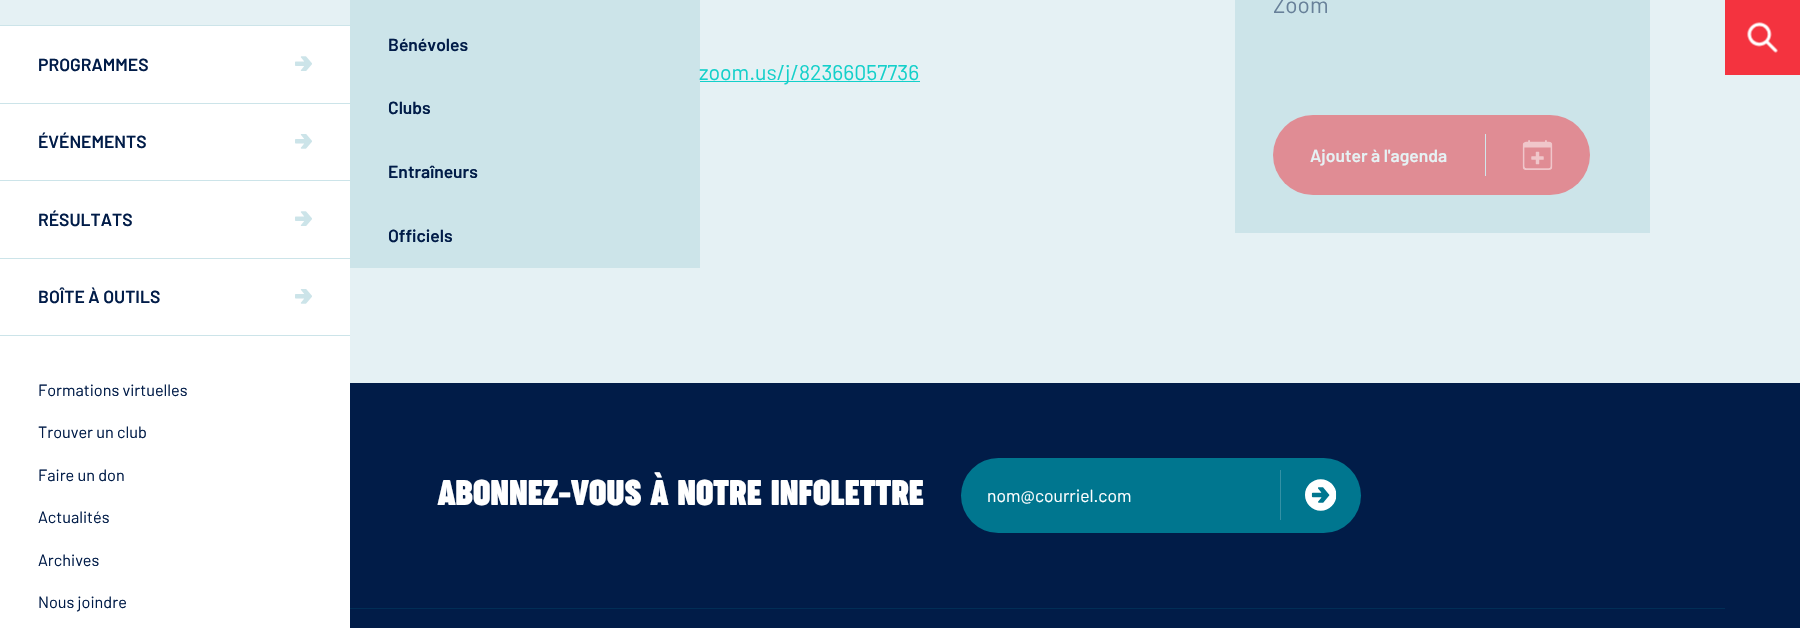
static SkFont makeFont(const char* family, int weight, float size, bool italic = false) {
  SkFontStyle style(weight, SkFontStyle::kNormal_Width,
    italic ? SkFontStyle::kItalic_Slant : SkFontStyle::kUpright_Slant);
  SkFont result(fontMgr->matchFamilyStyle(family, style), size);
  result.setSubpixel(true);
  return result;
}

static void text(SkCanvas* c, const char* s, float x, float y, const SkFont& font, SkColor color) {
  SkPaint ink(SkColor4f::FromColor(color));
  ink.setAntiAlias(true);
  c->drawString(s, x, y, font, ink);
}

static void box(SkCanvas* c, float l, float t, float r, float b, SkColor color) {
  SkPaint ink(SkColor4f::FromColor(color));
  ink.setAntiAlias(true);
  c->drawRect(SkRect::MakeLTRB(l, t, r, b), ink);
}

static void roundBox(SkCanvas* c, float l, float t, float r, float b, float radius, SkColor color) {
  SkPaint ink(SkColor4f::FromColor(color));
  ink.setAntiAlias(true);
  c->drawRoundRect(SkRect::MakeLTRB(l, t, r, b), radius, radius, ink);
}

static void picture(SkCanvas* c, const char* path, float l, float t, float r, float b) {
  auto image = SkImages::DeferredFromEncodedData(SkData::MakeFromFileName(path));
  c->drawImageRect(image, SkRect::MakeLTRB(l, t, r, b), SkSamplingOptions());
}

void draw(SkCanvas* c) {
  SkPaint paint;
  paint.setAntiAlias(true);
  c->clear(0xffe5f1f4);
  box(c, 0, 26, 350, 628, 0xffffffff);
  box(c, 0, 335, 350, 336, 0xffcce4e9);
  box(c, 0, 25, 350, 26, 0xffcce4e9);
  SkFont face1 = makeFont("Barlow", 600, 17.5f);
  text(c, "PROGRAMMES", 38, 71, face1, 0xff011c48);
  picture(c, "img_01.png", 295, 56, 312, 71);
  box(c, 350, 0, 700, 268, 0xffcce4e9);
  text(c, "Bénévoles", 388, 51, face1, 0xff011c48);
  text(c, "Clubs", 388, 114, face1, 0xff011c48);
  text(c, "Entraîneurs", 388, 178, face1, 0xff011c48);
  text(c, "Officiels", 388, 242, face1, 0xff011c48);
  box(c, 0, 103, 350, 104, 0xffcce4e9);
  text(c, "ÉVÉNEMENTS", 38, 148, face1, 0xff011c48);
  picture(c, "img_02.png", 295, 134, 312, 149);
  box(c, 0, 180, 350, 181, 0xffcce4e9);
  text(c, "RÉSULTATS", 38, 226, face1, 0xff011c48);
  picture(c, "img_01.png", 295, 211, 312, 226);
  box(c, 0, 258, 350, 259, 0xffcce4e9);
  text(c, "BOÎTE À OUTILS", 38, 303, face1, 0xff011c48);
  picture(c, "img_02.png", 295, 289, 312, 304);
  SkFont face2 = makeFont("Barlow", 400, 16.25f);
  text(c, "Formations virtuelles", 38, 396, face2, 0xff011c48);
  text(c, "Trouver un club", 38, 438, face2, 0xff011c48);
  text(c, "Faire un don", 38, 481, face2, 0xff011c48);
  text(c, "Actualités", 38, 523, face2, 0xff011c48);
  text(c, "Archives", 38, 566, face2, 0xff011c48);
  text(c, "Nous joindre", 38, 608, face2, 0xff011c48);
  box(c, 700, 81, 920, 82, 0xff13d0ca);
  SkFont face3 = makeFont("Barlow", 400, 21.25f);
  text(c, "zoom.us/j/82366057736", 699, 80, face3, 0xff13d0ca);
  box(c, 1235, 0, 1650, 233, 0xffcce4e9);
  SkFont face4 = makeFont("Barlow", 400, 22.5f);
  text(c, "Zoom", 1273, 13, face4, 0xff678099);
  roundBox(c, 1273, 115, 1590, 195, 40, 0xffe08c94);
  text(c, "Ajouter à l'agenda", 1310, 162, face1, 0xffe6f2f4);
  box(c, 1485, 134, 1486, 176, 0xffd1e7eb);
  picture(c, "img_03.png", 1522, 140, 1553, 170);
  box(c, 350, 383, 1800, 628, 0xff011c48);
  SkFont face5 = makeFont("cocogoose", 700, 33.75f);
  text(c, "ABONNEZ-VOUS À NOTRE INFOLETTRE", 438, 505, face5, 0xffffffff);
  roundBox(c, 961, 458, 1361, 533, 37.5f, 0xff00768f);
  SkFont face6 = makeFont("Barlow", 400, 17.5f);
  text(c, "nom@courriel.com", 987, 502, face6, 0xffffffff);
  box(c, 1280, 470, 1281, 520, 0xff3391a5);
  picture(c, "img_04.png", 1305, 479, 1337, 511);
  box(c, 350, 608, 1725, 609, 0xff012e56);
  box(c, 1725, 0, 1800, 75, 0xfff4333f);
  picture(c, "img_05.png", 1747, 22, 1778, 53);
}
